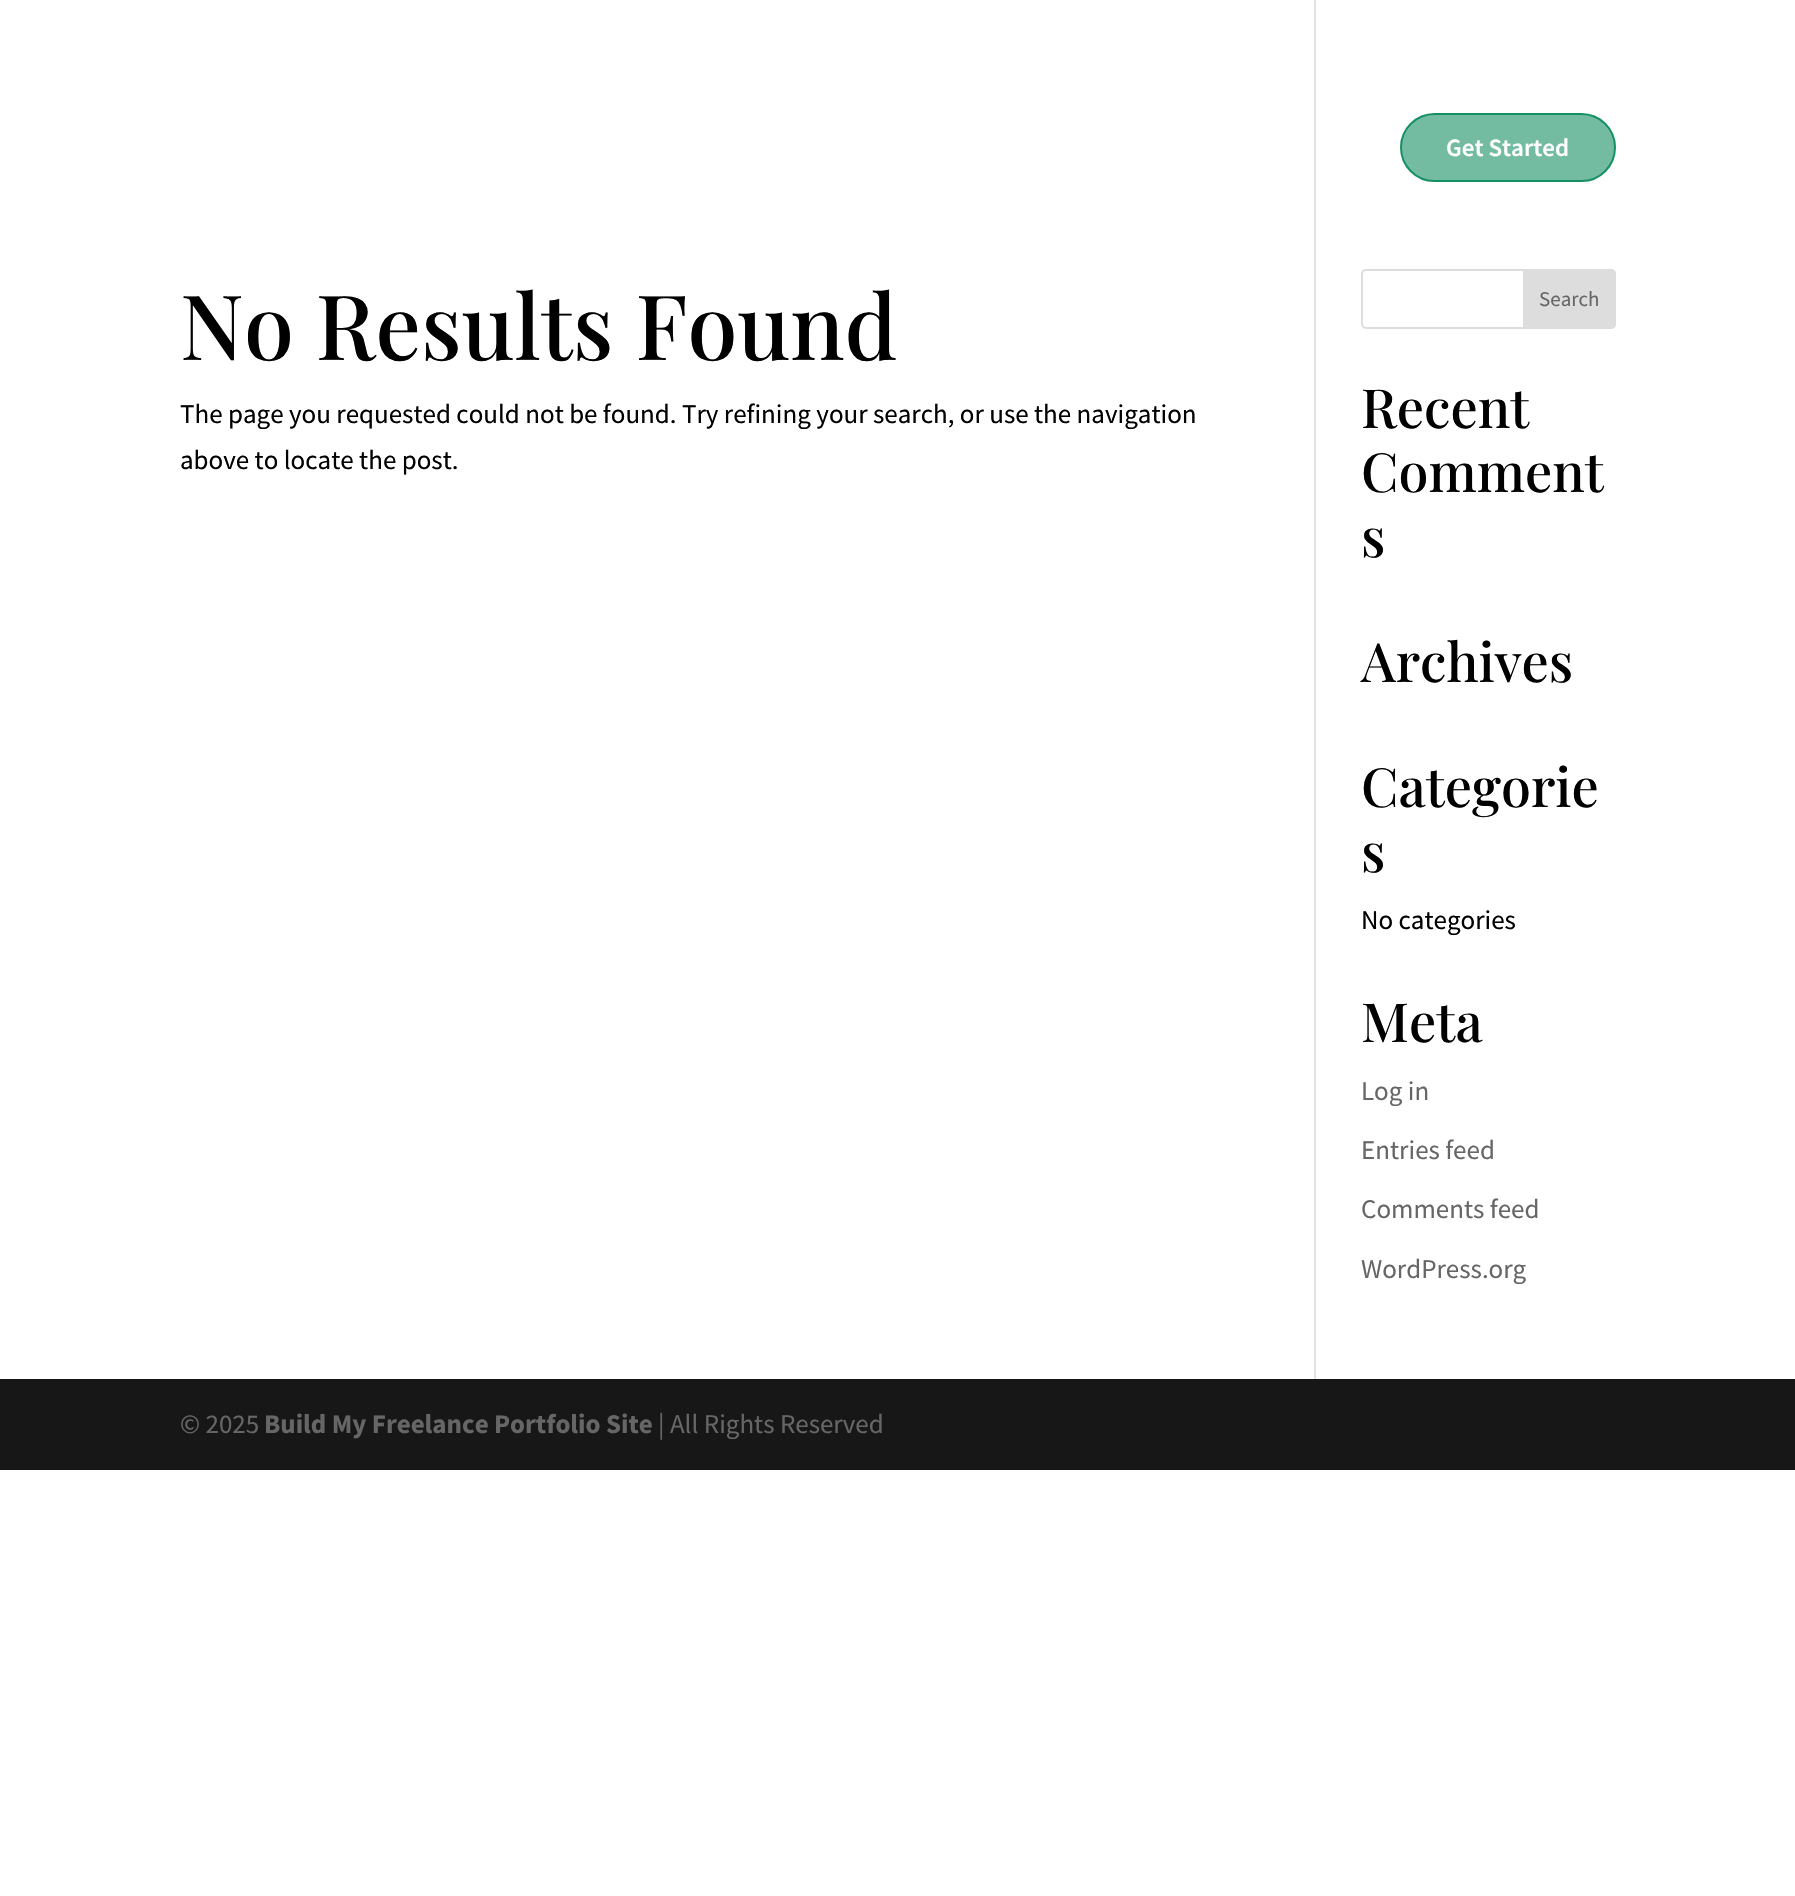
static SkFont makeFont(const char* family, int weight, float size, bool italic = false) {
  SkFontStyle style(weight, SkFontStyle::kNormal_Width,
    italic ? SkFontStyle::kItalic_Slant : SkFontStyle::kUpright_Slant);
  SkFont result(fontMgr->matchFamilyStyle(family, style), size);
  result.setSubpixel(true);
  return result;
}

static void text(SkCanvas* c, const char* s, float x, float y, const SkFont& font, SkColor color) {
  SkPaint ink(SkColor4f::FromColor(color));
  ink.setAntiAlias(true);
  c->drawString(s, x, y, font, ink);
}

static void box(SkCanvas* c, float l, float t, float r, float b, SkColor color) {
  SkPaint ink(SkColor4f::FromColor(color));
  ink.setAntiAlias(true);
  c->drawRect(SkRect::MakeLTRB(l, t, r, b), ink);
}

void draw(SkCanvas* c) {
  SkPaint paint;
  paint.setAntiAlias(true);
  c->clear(0xffffffff);
  paint.setColor(0xff73bca2);
  c->drawRoundRect(SkRect::MakeLTRB(1401, 114, 1615, 181), 33.5f, 33.5f, paint);
  paint.setStyle(SkPaint::kStroke_Style);
  paint.setStrokeWidth(2);
  paint.setColor(0xff159064);
  c->drawRoundRect(SkRect::MakeLTRB(1401, 114, 1615, 181), 33.5f, 33.5f, paint);
  SkFont face1 = makeFont("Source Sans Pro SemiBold", 600, 25);
  text(c, "Get Started", 1446, 156, face1, 0xffffffff);
  box(c, 1314, 0, 1316, 1379, 0xffe2e2e2);
  SkFont face2 = makeFont("Playfair Display", 500, 90);
  text(c, "No Results Found", 180, 360, face2, 0xff000000);
  SkFont face3 = makeFont("Source Sans Pro", 400, 27);
  text(c, "The page you requested could not be found. Try refining your search, or use the navigation", 180, 423, face3, 0xff000000);
  text(c, "above to locate the post.", 180, 469, face3, 0xff000000);
  paint.setColor(0xffdddddd);
  c->drawRoundRect(SkRect::MakeLTRB(1362, 270, 1615, 328), 4, 4, paint);
  paint.setStyle(SkPaint::kFill_Style);
  c->drawPath(SkPathBuilder().moveTo(1524, 270).lineTo(1611, 270).cubicTo(1613, 270, 1615, 272, 1615, 274).lineTo(1615, 324).cubicTo(1615, 326, 1613, 328, 1611, 328).lineTo(1524, 328).close().detach(), paint);
  paint.setStyle(SkPaint::kStroke_Style);
  c->drawPath(SkPathBuilder().moveTo(1524, 270).lineTo(1611, 270).cubicTo(1613, 270, 1615, 272, 1615, 274).lineTo(1615, 324).cubicTo(1615, 326, 1613, 328, 1611, 328).lineTo(1524, 328).close().detach(), paint);
  SkFont face4 = makeFont("Source Sans Pro", 400, 21);
  text(c, "Search", 1539, 306, face4, 0xff666666);
  SkFont face5 = makeFont("Playfair Display", 500, 54);
  text(c, "Recent", 1361, 428, face5, 0xff000000);
  text(c, "Comment", 1361, 492, face5, 0xff000000);
  text(c, "s", 1361, 557, face5, 0xff000000);
  text(c, "Archives", 1361, 682, face5, 0xff000000);
  text(c, "Categorie", 1361, 807, face5, 0xff000000);
  text(c, "s", 1361, 872, face5, 0xff000000);
  text(c, "No categories", 1361, 929, face3, 0xff000000);
  text(c, "Meta", 1361, 1042, face5, 0xff000000);
  text(c, "Log in", 1361, 1100, face3, 0xff666666);
  text(c, "Entries feed", 1361, 1159, face3, 0xff666666);
  text(c, "Comments feed", 1361, 1218, face3, 0xff666666);
  text(c, "WordPress.org", 1361, 1278, face3, 0xff666666);
  box(c, 0, 1379, 1795, 1470, 0xff171717);
  text(c, "© 2025", 180, 1433, face3, 0xff666666);
  SkFont face6 = makeFont("Source Sans Pro", 700, 27);
  text(c, "Build My Freelance Portfolio Site", 264, 1433, face6, 0xff666666);
  text(c, "| All Rights Reserved", 658, 1433, face3, 0xff666666);
}
